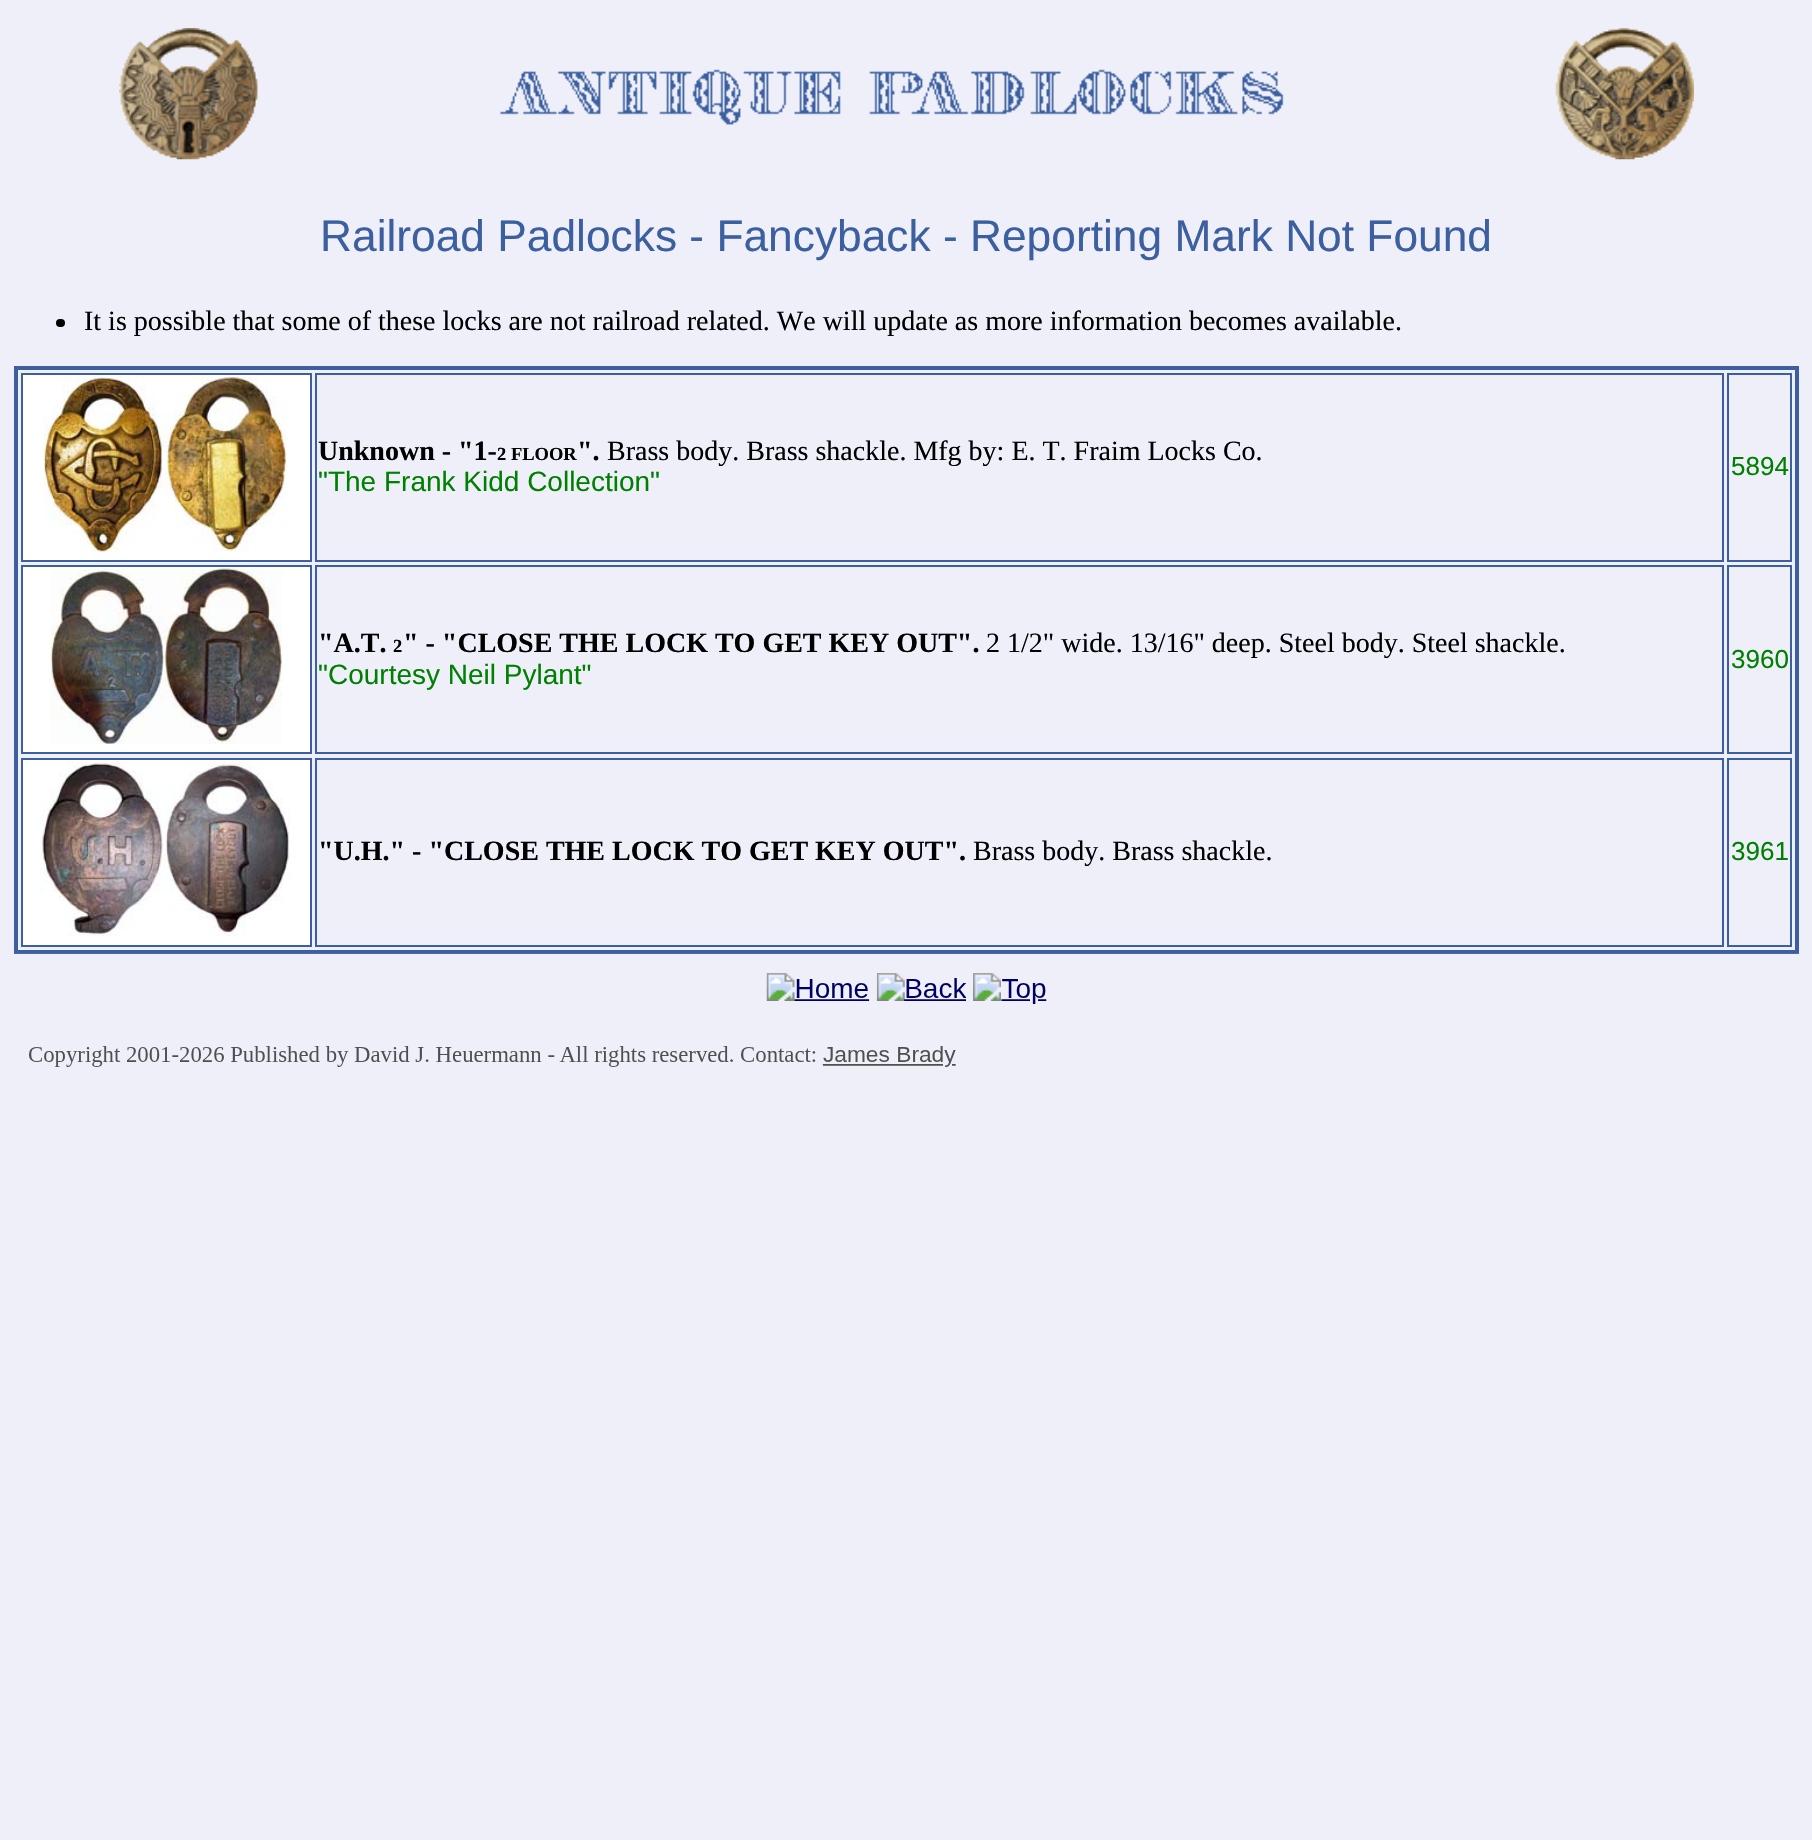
static SkFont makeFont(const char* family, int weight, float size, bool italic = false) {
  SkFontStyle style(weight, SkFontStyle::kNormal_Width,
    italic ? SkFontStyle::kItalic_Slant : SkFontStyle::kUpright_Slant);
  SkFont result(fontMgr->matchFamilyStyle(family, style), size);
  result.setSubpixel(true);
  return result;
}

static void text(SkCanvas* c, const char* s, float x, float y, const SkFont& font, SkColor color) {
  SkPaint ink(SkColor4f::FromColor(color));
  ink.setAntiAlias(true);
  c->drawString(s, x, y, font, ink);
}

static void roundBox(SkCanvas* c, float l, float t, float r, float b, float radius, SkColor color) {
  SkPaint ink(SkColor4f::FromColor(color));
  ink.setAntiAlias(true);
  c->drawRoundRect(SkRect::MakeLTRB(l, t, r, b), radius, radius, ink);
}

static void picture(SkCanvas* c, const char* path, float l, float t, float r, float b) {
  auto image = SkImages::DeferredFromEncodedData(SkData::MakeFromFileName(path));
  c->drawImageRect(image, SkRect::MakeLTRB(l, t, r, b), SkSamplingOptions());
}

void draw(SkCanvas* c) {
  SkPaint paint;
  paint.setAntiAlias(true);
  c->clear(0xffefeffa);
  picture(c, "img_01.png", 119, 28, 1694, 160);
  SkFont face1 = makeFont("Liberation Sans", 400, 44.3f);
  text(c, "Railroad Padlocks - Fancyback - Reporting Mark Not Found", 320, 251, face1, 0xff3c609f);
  roundBox(c, 56, 319, 65, 327, 4, 0xff000000);
  SkFont face2 = makeFont("Liberation Serif", 400, 28);
  text(c, "It is possible that some of these locks are not railroad related. We will update as more information becomes available.", 84, 330, face2, 0xff000000);
  paint.setStyle(SkPaint::kStroke_Style);
  paint.setStrokeWidth(4);
  paint.setColor(0xff3c609f);
  c->drawRect(SkRect::MakeLTRB(16, 368, 1797, 952), paint);
  paint.setStyle(SkPaint::kFill_Style);
  paint.setColor(0xffffffff);
  c->drawRect(SkRect::MakeLTRB(22, 374, 311, 561), paint);
  paint.setStyle(SkPaint::kStroke_Style);
  paint.setStrokeWidth(2);
  paint.setColor(0xff3c609f);
  c->drawRect(SkRect::MakeLTRB(22, 374, 311, 561), paint);
  picture(c, "img_02.png", 43, 376, 287, 552);
  c->drawRect(SkRect::MakeLTRB(316, 374, 1723, 561), paint);
  SkFont face3 = makeFont("Liberation Serif", 700, 28);
  text(c, "Unknown - \"1-", 318, 460, face3, 0xff000000);
  SkFont face4 = makeFont("Liberation Serif", 700, 18.5f);
  text(c, "2 FLOOR", 497, 460, face4, 0xff000000);
  text(c, "\".", 577, 460, face3, 0xff000000);
  text(c, "Brass body. Brass shackle. Mfg by: E. T. Fraim Locks Co.", 607, 460, face2, 0xff000000);
  SkFont face5 = makeFont("Liberation Sans", 400, 28);
  text(c, "\"The Frank Kidd Collection\"", 318, 491, face5, 0xff008000);
  c->drawRect(SkRect::MakeLTRB(1728, 374, 1791, 561), paint);
  SkFont face6 = makeFont("Liberation Sans", 400, 26);
  text(c, "5894", 1731, 475, face6, 0xff008000);
  paint.setStyle(SkPaint::kFill_Style);
  paint.setColor(0xffffffff);
  c->drawRect(SkRect::MakeLTRB(22, 566, 311, 753), paint);
  paint.setStyle(SkPaint::kStroke_Style);
  paint.setColor(0xff3c609f);
  c->drawRect(SkRect::MakeLTRB(22, 566, 311, 753), paint);
  picture(c, "img_03.png", 50, 568, 282, 744);
  c->drawRect(SkRect::MakeLTRB(316, 566, 1723, 753), paint);
  text(c, "\"A.T.", 318, 652, face3, 0xff000000);
  text(c, "2", 393, 652, face4, 0xff000000);
  text(c, "\" - \"CLOSE THE LOCK TO GET KEY OUT\".", 403, 652, face3, 0xff000000);
  text(c, "2 1/2\" wide. 13/16\" deep. Steel body. Steel shackle.", 986, 652, face2, 0xff000000);
  text(c, "\"Courtesy Neil Pylant\"", 318, 684, face5, 0xff008000);
  c->drawRect(SkRect::MakeLTRB(1728, 566, 1791, 753), paint);
  text(c, "3960", 1731, 668, face6, 0xff008000);
  paint.setStyle(SkPaint::kFill_Style);
  paint.setColor(0xffffffff);
  c->drawRect(SkRect::MakeLTRB(22, 759, 311, 946), paint);
  paint.setStyle(SkPaint::kStroke_Style);
  paint.setColor(0xff3c609f);
  c->drawRect(SkRect::MakeLTRB(22, 759, 311, 946), paint);
  picture(c, "img_04.png", 40, 761, 291, 936);
  c->drawRect(SkRect::MakeLTRB(316, 759, 1723, 946), paint);
  text(c, "\"U.H.\" - \"CLOSE THE LOCK TO GET KEY OUT\".", 318, 860, face3, 0xff000000);
  text(c, "Brass body. Brass shackle.", 973, 860, face2, 0xff000000);
  c->drawRect(SkRect::MakeLTRB(1728, 759, 1791, 946), paint);
  text(c, "3961", 1731, 860, face6, 0xff008000);
  picture(c, "img_05.png", 14, 953, 1799, 1067);
}
